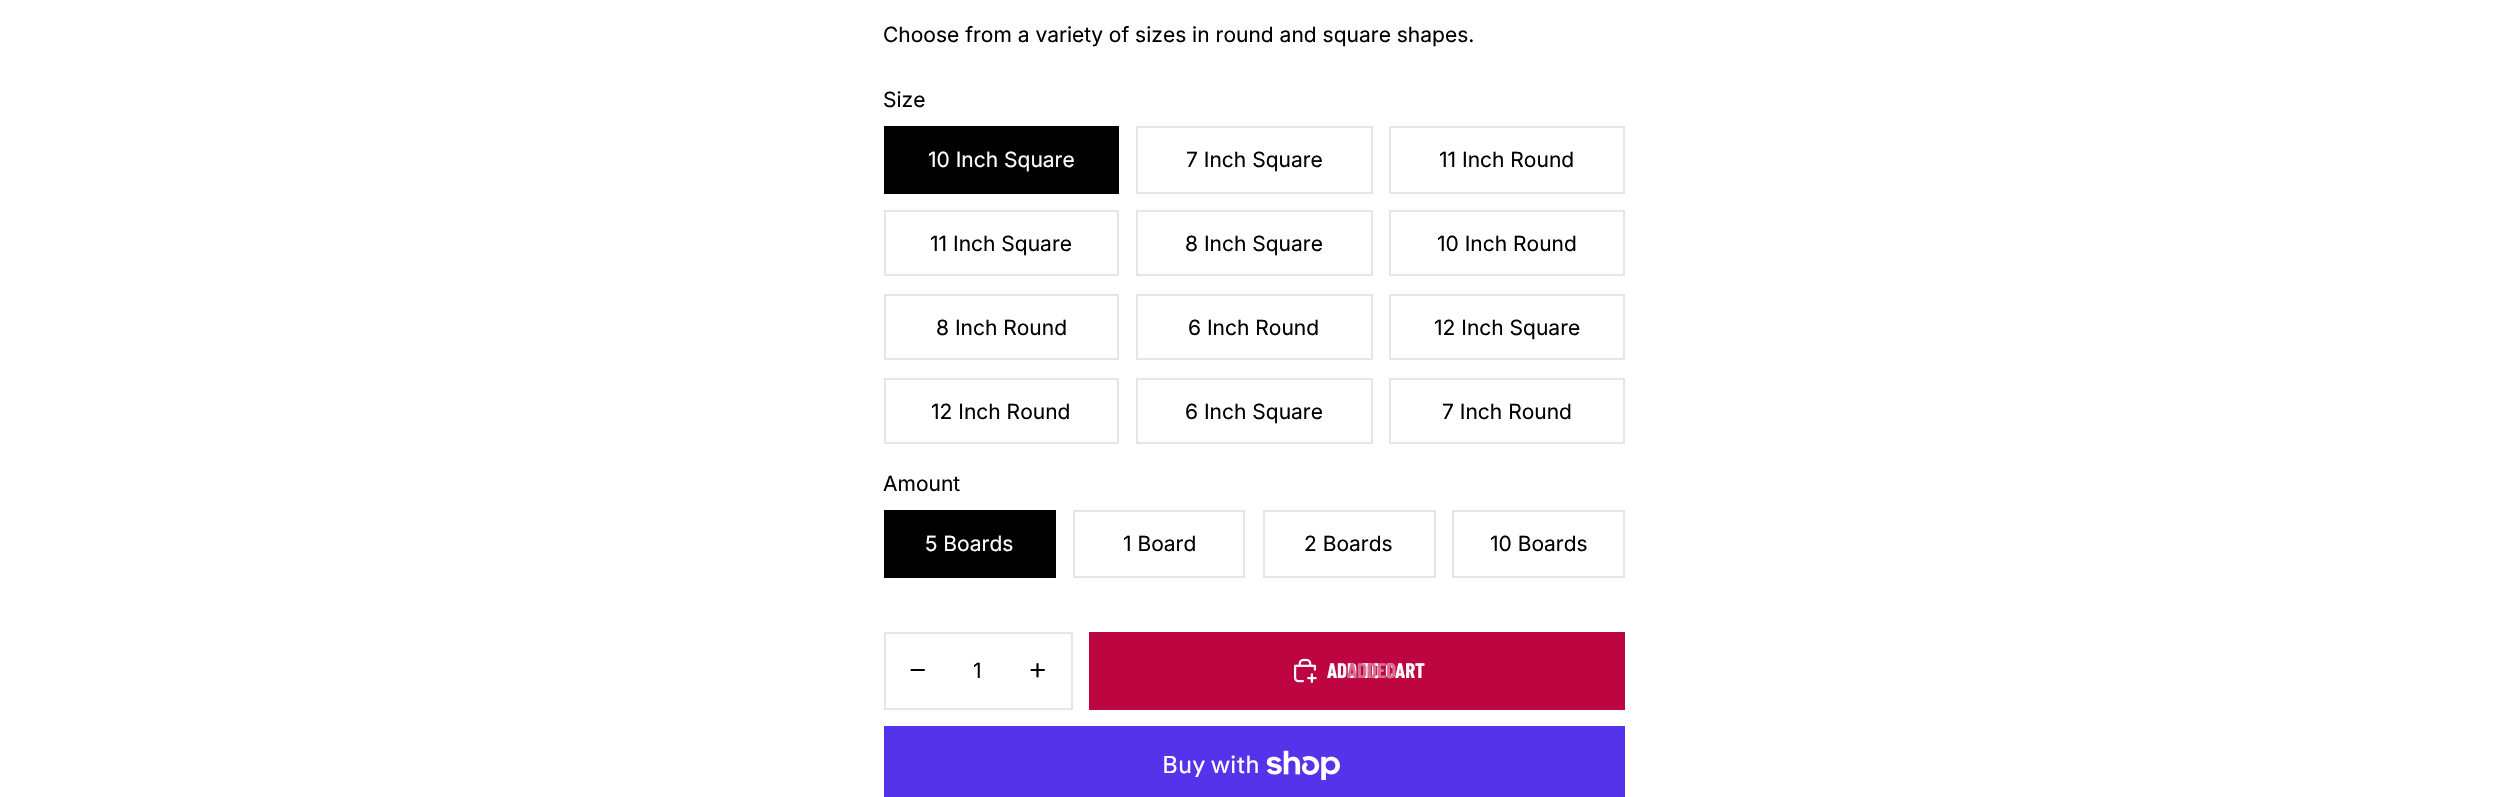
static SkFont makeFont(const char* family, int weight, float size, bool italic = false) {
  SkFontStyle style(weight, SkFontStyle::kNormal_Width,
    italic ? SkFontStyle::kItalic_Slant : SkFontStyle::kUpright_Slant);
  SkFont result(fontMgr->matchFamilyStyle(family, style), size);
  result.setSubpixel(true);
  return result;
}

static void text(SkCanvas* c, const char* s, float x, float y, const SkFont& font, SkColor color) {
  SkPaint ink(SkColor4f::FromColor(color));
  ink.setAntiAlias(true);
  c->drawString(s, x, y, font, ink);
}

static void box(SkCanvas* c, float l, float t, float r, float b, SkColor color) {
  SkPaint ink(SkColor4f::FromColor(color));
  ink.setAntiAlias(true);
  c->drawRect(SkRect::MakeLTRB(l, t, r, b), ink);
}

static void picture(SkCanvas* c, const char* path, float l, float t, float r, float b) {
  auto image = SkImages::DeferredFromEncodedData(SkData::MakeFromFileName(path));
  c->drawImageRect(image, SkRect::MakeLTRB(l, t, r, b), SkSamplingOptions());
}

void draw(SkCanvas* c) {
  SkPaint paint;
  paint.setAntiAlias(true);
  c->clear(0xffffffff);
  SkFont face1 = makeFont("Inter", 400, 21);
  text(c, "Choose from a variety of sizes in round and square shapes.", 883, 42, face1, 0xff000000);
  text(c, "Size", 883, 107, face1, 0xff000000);
  box(c, 884, 126, 1119, 194, 0xff000000);
  text(c, "10 Inch Square", 928, 167, face1, 0xffffffff);
  paint.setStyle(SkPaint::kStroke_Style);
  paint.setStrokeWidth(2);
  paint.setColor(0xffe6e6e6);
  c->drawRect(SkRect::MakeLTRB(1137, 127, 1372, 193), paint);
  text(c, "7 Inch Square", 1186, 167, face1, 0xff000000);
  c->drawRect(SkRect::MakeLTRB(1390, 127, 1624, 193), paint);
  text(c, "11 Inch Round", 1439, 167, face1, 0xff000000);
  c->drawRect(SkRect::MakeLTRB(885, 211, 1118, 275), paint);
  text(c, "11 Inch Square", 930, 251, face1, 0xff000000);
  c->drawRect(SkRect::MakeLTRB(1137, 211, 1372, 275), paint);
  text(c, "8 Inch Square", 1185, 251, face1, 0xff000000);
  c->drawRect(SkRect::MakeLTRB(1390, 211, 1624, 275), paint);
  text(c, "10 Inch Round", 1437, 251, face1, 0xff000000);
  c->drawRect(SkRect::MakeLTRB(885, 295, 1118, 359), paint);
  text(c, "8 Inch Round", 936, 335, face1, 0xff000000);
  c->drawRect(SkRect::MakeLTRB(1137, 295, 1372, 359), paint);
  text(c, "6 Inch Round", 1188, 335, face1, 0xff000000);
  c->drawRect(SkRect::MakeLTRB(1390, 295, 1624, 359), paint);
  text(c, "12 Inch Square", 1434, 335, face1, 0xff000000);
  c->drawRect(SkRect::MakeLTRB(885, 379, 1118, 443), paint);
  text(c, "12 Inch Round", 931, 419, face1, 0xff000000);
  c->drawRect(SkRect::MakeLTRB(1137, 379, 1372, 443), paint);
  text(c, "6 Inch Square", 1185, 419, face1, 0xff000000);
  c->drawRect(SkRect::MakeLTRB(1390, 379, 1624, 443), paint);
  text(c, "7 Inch Round", 1442, 419, face1, 0xff000000);
  text(c, "Amount", 883, 491, face1, 0xff000000);
  box(c, 884, 510, 1056, 578, 0xff000000);
  text(c, "5 Boards", 925, 551, face1, 0xffffffff);
  c->drawRect(SkRect::MakeLTRB(1074, 511, 1244, 577), paint);
  text(c, "1 Board", 1123, 551, face1, 0xff000000);
  c->drawRect(SkRect::MakeLTRB(1264, 511, 1435, 577), paint);
  text(c, "2 Boards", 1304, 551, face1, 0xff000000);
  c->drawRect(SkRect::MakeLTRB(1453, 511, 1624, 577), paint);
  text(c, "10 Boards", 1490, 551, face1, 0xff000000);
  c->drawRect(SkRect::MakeLTRB(885, 633, 1072, 709), paint);
  paint.setStrokeWidth(2.2f);
  paint.setStrokeCap(SkPaint::kRound_Cap);
  paint.setColor(0xff000000);
  c->drawPath(SkPathBuilder().moveTo(911.5f, 670).lineTo(924, 670).detach(), paint);
  text(c, "1", 973, 678, face1, 0xff000000);
  c->drawPath(SkPathBuilder().moveTo(1031.5f, 670).lineTo(1044, 670).moveTo(1037.5f, 664).lineTo(1037.5f, 676.5f).detach(), paint);
  box(c, 1089, 632, 1625, 710, 0xffbd0542);
  picture(c, "img_01.png", 1294, 658, 1317, 683);
  SkFont face2 = makeFont("Barlow Condensed", 700, 21);
  text(c, "ADD TO CART", 1327, 678, face2, 0xffffffff);
  text(c, "ADDED", 1347, 678, face2, 0xffd96e91);
  box(c, 884, 726, 1625, 797, 0xff5433eb);
  SkFont face3 = makeFont("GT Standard", 400, 24);
  text(c, "Buy with", 1162, 773, face3, 0xffffffff);
  picture(c, "img_02.png", 1266, 750, 1340, 780);
}
